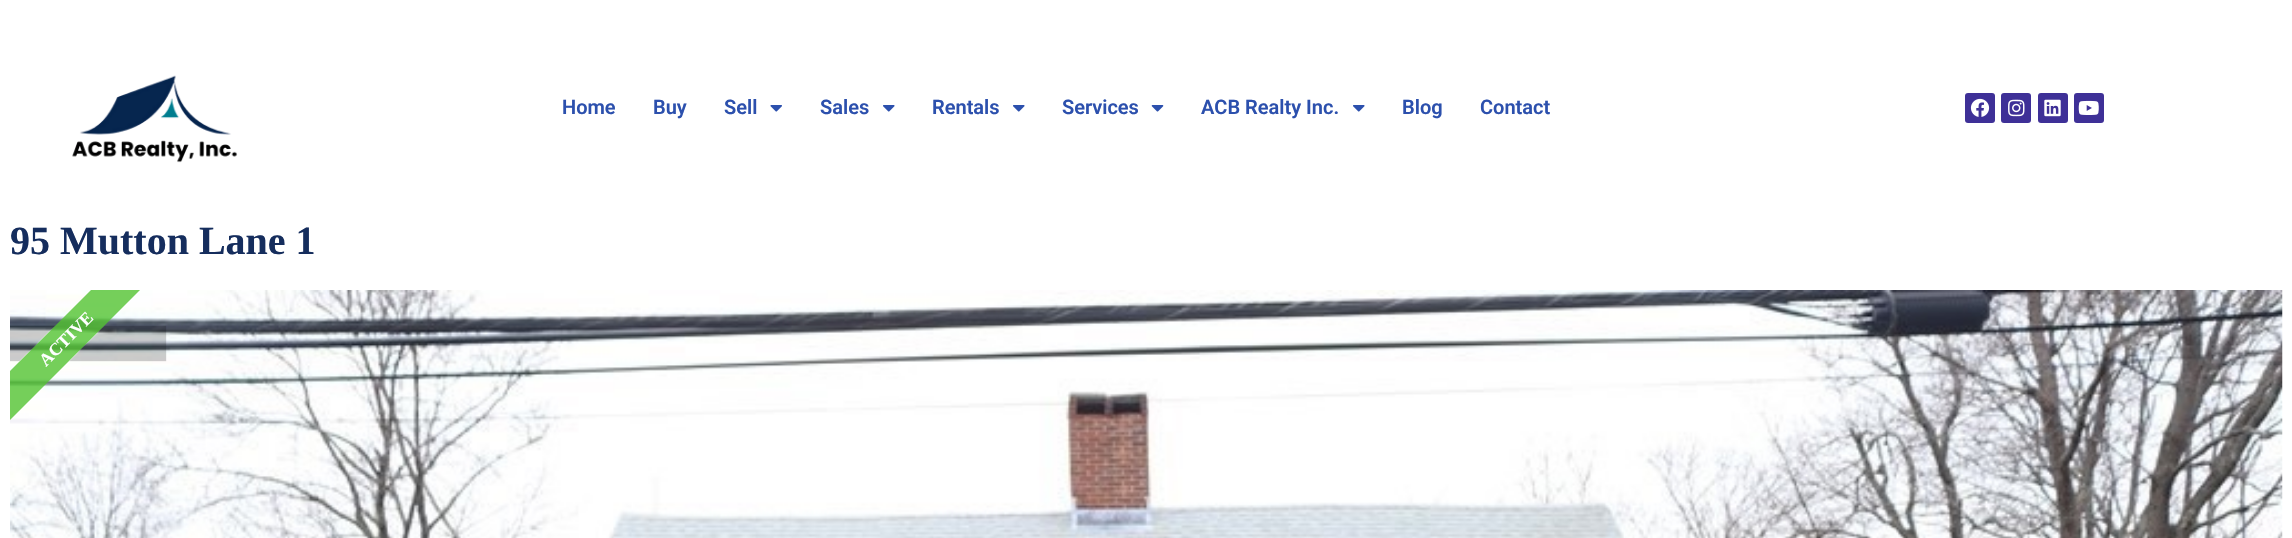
static SkFont makeFont(const char* family, int weight, float size, bool italic = false) {
  SkFontStyle style(weight, SkFontStyle::kNormal_Width,
    italic ? SkFontStyle::kItalic_Slant : SkFontStyle::kUpright_Slant);
  SkFont result(fontMgr->matchFamilyStyle(family, style), size);
  result.setSubpixel(true);
  return result;
}

static void text(SkCanvas* c, const char* s, float x, float y, const SkFont& font, SkColor color) {
  SkPaint ink(SkColor4f::FromColor(color));
  ink.setAntiAlias(true);
  c->drawString(s, x, y, font, ink);
}

static void roundBox(SkCanvas* c, float l, float t, float r, float b, float radius, SkColor color) {
  SkPaint ink(SkColor4f::FromColor(color));
  ink.setAntiAlias(true);
  c->drawRoundRect(SkRect::MakeLTRB(l, t, r, b), radius, radius, ink);
}

static void picture(SkCanvas* c, const char* path, float l, float t, float r, float b) {
  auto image = SkImages::DeferredFromEncodedData(SkData::MakeFromFileName(path));
  c->drawImageRect(image, SkRect::MakeLTRB(l, t, r, b), SkSamplingOptions());
}

void draw(SkCanvas* c) {
  SkPaint paint;
  paint.setAntiAlias(true);
  c->clear(0xffffffff);
  picture(c, "img_01.png", 72, 75, 238, 163);
  SkFont face1 = makeFont("Roboto", 600, 20);
  text(c, "Home", 562, 114, face1, 0xff2c50ad);
  text(c, "Buy", 653, 114, face1, 0xff2c50ad);
  text(c, "Sell", 724, 114, face1, 0xff2c50ad);
  picture(c, "img_02.png", 770, 105, 782, 112);
  text(c, "Sales", 820, 114, face1, 0xff2c50ad);
  picture(c, "img_03.png", 883, 105, 895, 112);
  text(c, "Rentals", 932, 114, face1, 0xff2c50ad);
  picture(c, "img_03.png", 1013, 105, 1025, 112);
  text(c, "Services", 1062, 114, face1, 0xff2c50ad);
  picture(c, "img_04.png", 1151, 105, 1164, 112);
  text(c, "ACB Realty Inc.", 1201, 114, face1, 0xff2c50ad);
  picture(c, "img_03.png", 1353, 105, 1365, 112);
  text(c, "Blog", 1402, 114, face1, 0xff2c50ad);
  text(c, "Contact", 1480, 114, face1, 0xff2c50ad);
  roundBox(c, 1965, 93, 1995, 123, 3, 0xff3e3097);
  picture(c, "img_05.png", 1970, 98, 1990, 117);
  roundBox(c, 2001, 93, 2031, 123, 3, 0xff3e3097);
  picture(c, "img_06.png", 2008, 99, 2025, 117);
  roundBox(c, 2038, 93, 2068, 123, 3, 0xff3e3097);
  picture(c, "img_07.png", 2044, 99, 2061, 117);
  roundBox(c, 2074, 93, 2104, 123, 3, 0xff3e3097);
  picture(c, "img_08.png", 2078, 100, 2099, 115);
  SkFont face2 = makeFont("Liberation Serif", 700, 40);
  text(c, "95 Mutton Lane 1", 10, 254, face2, 0xff152d5d);
  picture(c, "img_09.png", 10, 290, 2283, 538);
  c->save();
  c->clipRect(SkRect::MakeLTRB(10, 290, 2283, 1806));
  c->clipPath(SkPathBuilder(SkPathFillType::kEvenOdd).moveTo(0, 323).lineTo(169, 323).lineTo(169, 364).lineTo(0, 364).close().moveTo(-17, 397.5f).lineTo(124.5f, 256).lineTo(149.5f, 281).lineTo(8, 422.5f).close().detach(), true);
  paint.setColor(0x33000000);
  paint.setMaskFilter(SkMaskFilter::MakeBlur(kNormal_SkBlurStyle, 0.5f));
  c->drawRect(SkRect::MakeLTRB(-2, 326, 166, 361), paint);
  paint.setMaskFilter(nullptr);
  c->restore();
  c->save();
  c->clipRect(SkRect::MakeLTRB(10, 290, 2283, 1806));
  paint.setColor(0xcc53c331);
  c->drawPath(SkPathBuilder().moveTo(-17, 398).lineTo(125, 256).lineTo(149, 281).lineTo(8, 422).close().detach(), paint);
  c->restore();
  SkFont face3 = makeFont("Liberation Serif", 700, 17.5f);
  c->save();
  c->rotate(-45, 46, 367);
  text(c, "ACTIVE", 46, 367, face3, 0xffffffff);
  c->restore();
}
